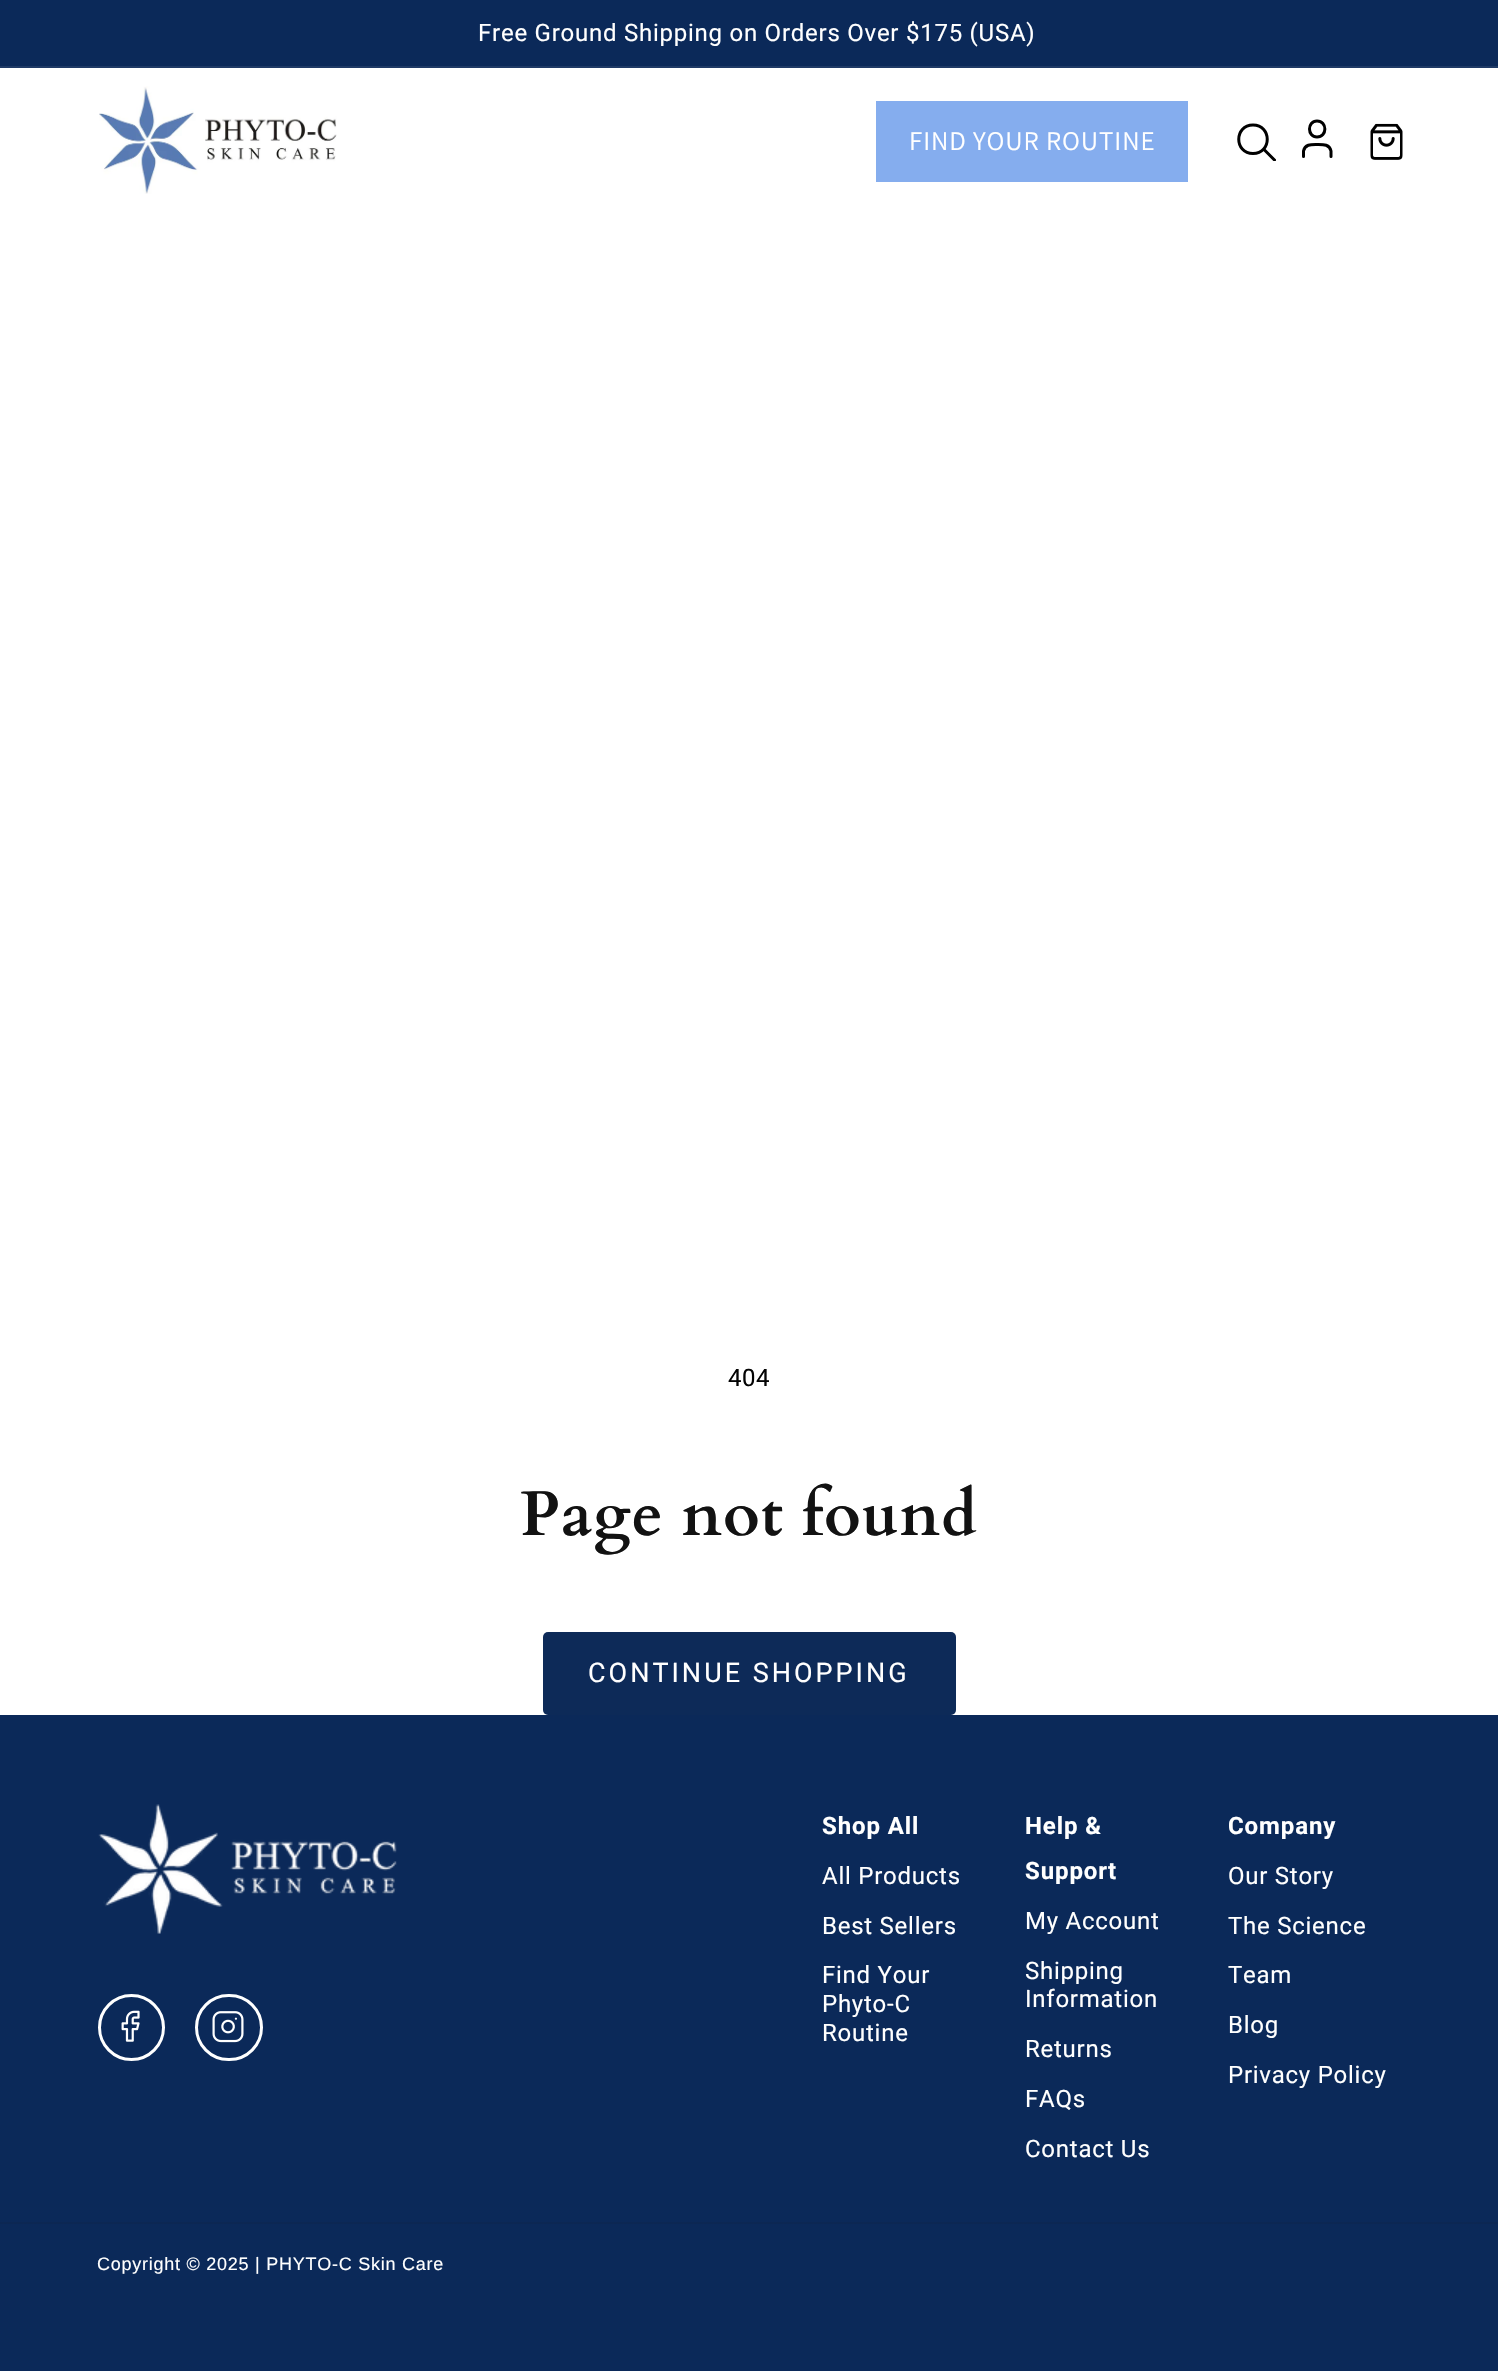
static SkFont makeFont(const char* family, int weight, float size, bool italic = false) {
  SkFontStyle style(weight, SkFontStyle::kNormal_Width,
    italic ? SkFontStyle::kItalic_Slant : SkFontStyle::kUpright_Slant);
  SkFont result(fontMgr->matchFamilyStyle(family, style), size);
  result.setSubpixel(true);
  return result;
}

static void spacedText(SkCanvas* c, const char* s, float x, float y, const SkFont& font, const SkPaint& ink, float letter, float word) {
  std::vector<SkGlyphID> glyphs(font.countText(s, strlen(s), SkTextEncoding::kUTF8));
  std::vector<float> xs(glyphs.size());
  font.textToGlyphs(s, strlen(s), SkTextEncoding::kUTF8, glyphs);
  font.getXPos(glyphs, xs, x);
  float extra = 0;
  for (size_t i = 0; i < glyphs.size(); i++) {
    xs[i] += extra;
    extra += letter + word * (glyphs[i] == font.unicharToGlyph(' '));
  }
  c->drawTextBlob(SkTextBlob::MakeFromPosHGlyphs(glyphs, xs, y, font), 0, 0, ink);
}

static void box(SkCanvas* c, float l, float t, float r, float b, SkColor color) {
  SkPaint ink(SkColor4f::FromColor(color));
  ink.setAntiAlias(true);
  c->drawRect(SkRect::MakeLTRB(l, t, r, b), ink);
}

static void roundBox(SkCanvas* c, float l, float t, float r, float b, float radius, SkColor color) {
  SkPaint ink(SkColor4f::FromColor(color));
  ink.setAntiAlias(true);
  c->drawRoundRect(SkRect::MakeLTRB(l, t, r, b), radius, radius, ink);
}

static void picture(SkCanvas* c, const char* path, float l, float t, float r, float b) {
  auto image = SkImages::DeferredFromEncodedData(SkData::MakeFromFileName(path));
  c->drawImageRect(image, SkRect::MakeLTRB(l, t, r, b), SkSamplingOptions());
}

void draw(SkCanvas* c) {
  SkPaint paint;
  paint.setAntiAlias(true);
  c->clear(0xffffffff);
  box(c, 0, 0, 1498, 66, 0xff0b2959);
  box(c, 0, 66, 1498, 68, 0xff1f3a66);
  SkFont face1 = makeFont("Roboto", 400, 24);
  paint.setColor(0xffffffff);
  spacedText(c, "Free Ground Shipping on Orders Over $175 (USA)", 478, 41, face1, paint, 0.75f, 0);
  picture(c, "img_01.png", 99, 86, 337, 194);
  box(c, 876, 101, 1188, 182, 0xff85adee);
  SkFont face2 = makeFont("Assistant", 400, 27);
  spacedText(c, "FIND YOUR ROUTINE", 909, 150, face2, paint, 0.9f, 0);
  paint.setStyle(SkPaint::kStroke_Style);
  paint.setStrokeWidth(3);
  paint.setStrokeCap(SkPaint::kRound_Cap);
  paint.setStrokeJoin(SkPaint::kRound_Join);
  paint.setColor(0xff000000);
  c->drawPath(SkPathBuilder().moveTo(1253, 153.5f).cubicTo(1272, 153.5f, 1272, 125, 1253, 125).cubicTo(1234, 125, 1234, 153.5f, 1253, 153.5f).close().detach(), paint);
  c->save();
  c->clipRect(SkRect::MakeLTRB(1237, 122, 1276, 161));
  c->drawPath(SkPathBuilder().moveTo(1274.5f, 160).lineTo(1264, 149.5f).detach(), paint);
  c->restore();
  c->drawPath(SkPathBuilder().moveTo(1331, 156.5f).lineTo(1331, 151).cubicTo(1329.5f, 144, 1323, 144.5f, 1317, 144.5f).cubicTo(1311.5f, 144.5f, 1305, 144, 1303.5f, 151).lineTo(1303.5f, 156.5f).moveTo(1317, 137).cubicTo(1327.5f, 137, 1327.5f, 121, 1317, 121).cubicTo(1307, 121, 1307, 137, 1317, 137).close().detach(), paint);
  picture(c, "img_02.png", 1370, 123, 1403, 160);
  paint.setStyle(SkPaint::kFill_Style);
  paint.setColor(0xff030303);
  spacedText(c, "404", 728, 1386, face1, paint, 0.5f, 0);
  SkFont face3 = makeFont("Cardo", 700, 63);
  paint.setColor(0xff121212);
  spacedText(c, "Page not found", 520, 1535, face3, paint, 0.9f, 0);
  roundBox(c, 543, 1632, 956, 1715, 5, 0xff0d2a58);
  SkFont face4 = makeFont("Roboto", 400, 27);
  paint.setColor(0xffffffff);
  spacedText(c, "CONTINUE SHOPPING", 588, 1682, face4, paint, 3, 0);
  box(c, 0, 1715, 1498, 2371, 0xff0b2959);
  picture(c, "img_03.png", 98, 1804, 397, 1934);
  paint.setStyle(SkPaint::kStroke_Style);
  paint.setStrokeCap(SkPaint::kButt_Cap);
  paint.setStrokeJoin(SkPaint::kMiter_Join);
  c->drawCircle(131.5f, 2027.5f, 32, paint);
  picture(c, "img_04.png", 121, 2010, 140, 2042);
  c->drawRoundRect(SkRect::MakeLTRB(196.5f, 1995.5f, 261.5f, 2059.5f), 32, 32, paint);
  picture(c, "img_05.png", 212, 2011, 244, 2043);
  SkFont face5 = makeFont("Roboto", 700, 24);
  paint.setStyle(SkPaint::kFill_Style);
  spacedText(c, "Shop All", 822, 1834, face5, paint, 0.9f, 0);
  spacedText(c, "All Products", 822, 1884, face1, paint, 0.75f, 0);
  spacedText(c, "Best Sellers", 822, 1934, face1, paint, 0.75f, 0);
  spacedText(c, "Find Your", 822, 1983, face1, paint, 0.75f, 0);
  spacedText(c, "Phyto-C", 822, 2012, face1, paint, 0.75f, 0);
  spacedText(c, "Routine", 822, 2041, face1, paint, 0.75f, 0);
  spacedText(c, "Help &", 1025, 1834, face5, paint, 0.9f, 0);
  spacedText(c, "Support", 1025, 1879, face5, paint, 0.9f, 0);
  spacedText(c, "My Account", 1025, 1929, face1, paint, 0.75f, 0);
  spacedText(c, "Shipping", 1025, 1979, face1, paint, 0.75f, 0);
  spacedText(c, "Information", 1025, 2007, face1, paint, 0.75f, 0);
  spacedText(c, "Returns", 1025, 2057, face1, paint, 0.75f, 0);
  spacedText(c, "FAQs", 1025, 2107, face1, paint, 0.75f, 0);
  spacedText(c, "Contact Us", 1025, 2157, face1, paint, 0.75f, 0);
  spacedText(c, "Company", 1228, 1834, face5, paint, 0.9f, 0);
  spacedText(c, "Our Story", 1228, 1884, face1, paint, 0.75f, 0);
  spacedText(c, "The Science", 1228, 1934, face1, paint, 0.75f, 0);
  spacedText(c, "Team", 1228, 1983, face1, paint, 0.75f, 0);
  spacedText(c, "Blog", 1228, 2033, face1, paint, 0.75f, 0);
  spacedText(c, "Privacy Policy", 1228, 2083, face1, paint, 0.75f, 0);
  box(c, 0, 2222, 1498, 2224, 0xff0c2753);
  SkFont face6 = makeFont("Liberation Sans", 400, 18);
  spacedText(c, "Copyright © 2025 | PHYTO-C Skin Care", 97, 2270, face6, paint, 0.75f, 0);
}
